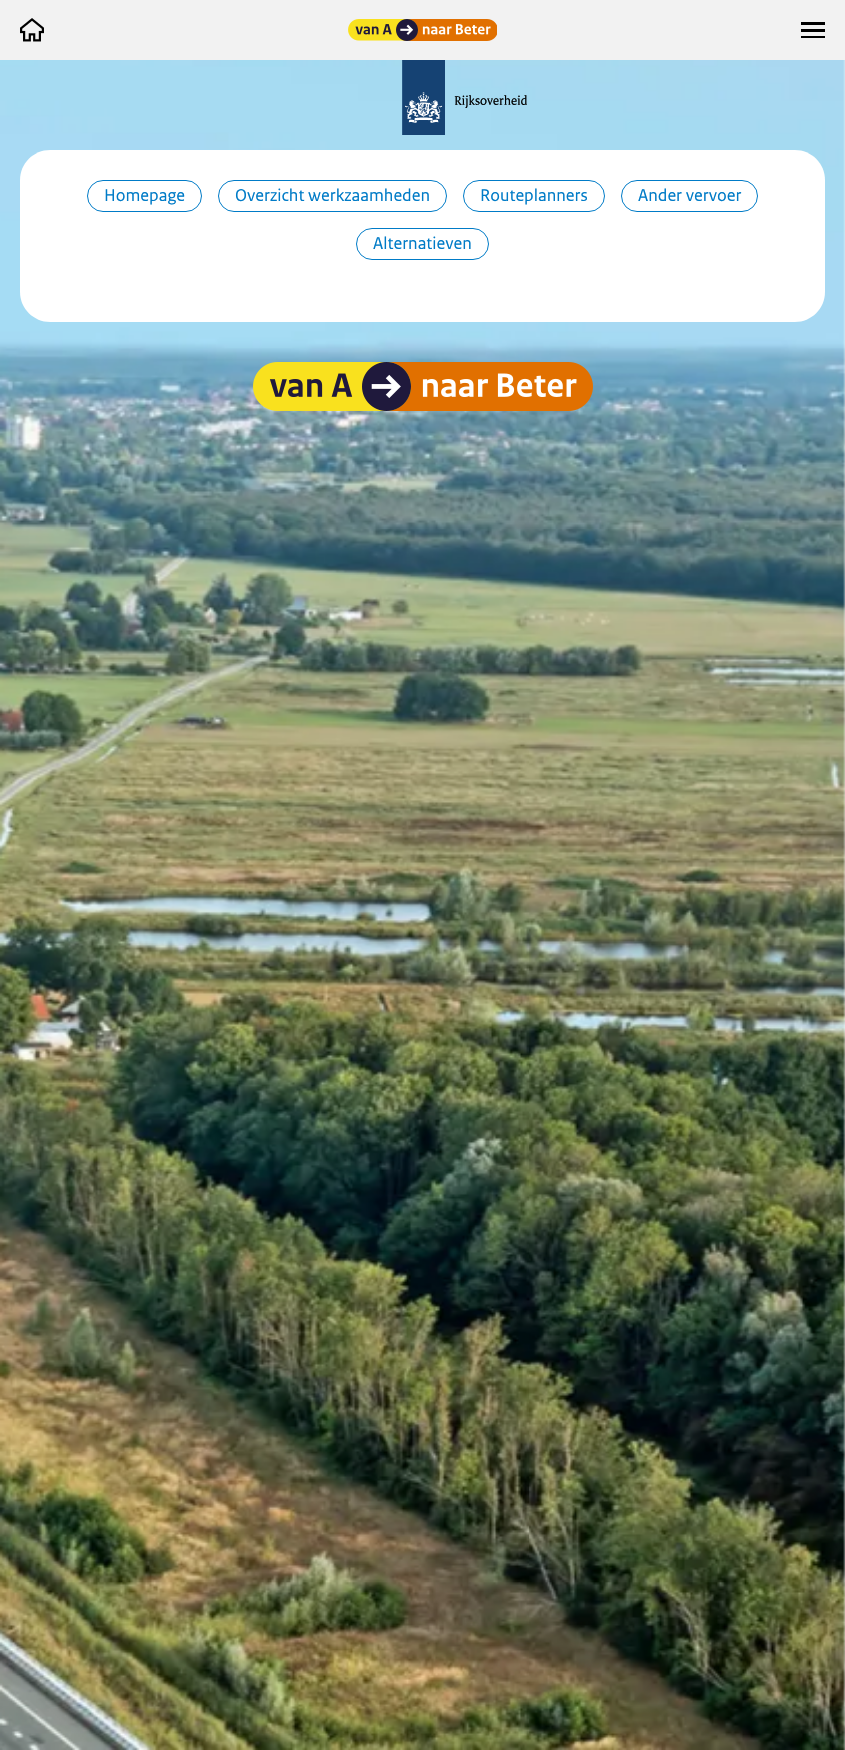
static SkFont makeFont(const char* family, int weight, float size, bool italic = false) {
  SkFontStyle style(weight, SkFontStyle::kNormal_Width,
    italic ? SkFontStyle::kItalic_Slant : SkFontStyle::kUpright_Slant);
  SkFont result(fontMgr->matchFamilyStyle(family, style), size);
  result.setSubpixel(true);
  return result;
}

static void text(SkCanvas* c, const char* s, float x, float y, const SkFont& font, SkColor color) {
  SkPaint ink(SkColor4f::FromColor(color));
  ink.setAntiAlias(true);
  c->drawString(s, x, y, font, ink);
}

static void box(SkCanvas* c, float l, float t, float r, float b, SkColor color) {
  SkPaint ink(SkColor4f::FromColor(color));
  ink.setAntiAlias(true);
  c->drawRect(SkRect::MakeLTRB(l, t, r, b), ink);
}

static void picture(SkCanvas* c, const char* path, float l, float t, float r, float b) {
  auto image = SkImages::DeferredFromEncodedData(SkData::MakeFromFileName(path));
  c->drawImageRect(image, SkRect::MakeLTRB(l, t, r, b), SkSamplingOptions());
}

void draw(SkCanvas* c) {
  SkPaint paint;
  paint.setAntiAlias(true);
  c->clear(0xfff2f2f2);
  picture(c, "img_01.png", 0, 60, 845, 1750);
  picture(c, "img_02.png", 402, 60, 527, 135);
  picture(c, "img_03.png", 20, 18, 44, 42);
  picture(c, "img_04.png", 348, 19, 497, 41);
  box(c, 801, 22, 825, 25, 0xff000000);
  box(c, 801, 29, 825, 32, 0xff000000);
  box(c, 801, 36, 825, 38, 0xff000000);
  paint.setColor(0xffffffff);
  c->drawPath(SkPathBuilder().moveTo(50, 150).lineTo(795, 150).cubicTo(811.5f, 150, 825, 163.5f, 825, 180).lineTo(825, 260).lineTo(20, 260).lineTo(20, 180).cubicTo(20, 163.5f, 33.5f, 150, 50, 150).close().detach(), paint);
  paint.setStyle(SkPaint::kStroke_Style);
  paint.setStrokeWidth(1);
  paint.setColor(0xff007bc7);
  c->drawRoundRect(SkRect::MakeLTRB(87.5f, 180.5f, 201.5f, 211.5f), 15.5f, 15.5f, paint);
  SkFont face1 = makeFont("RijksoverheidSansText", 400, 18);
  text(c, "Homepage", 104, 201, face1, 0xff007bc7);
  c->drawRoundRect(SkRect::MakeLTRB(218.5f, 180.5f, 446.5f, 211.5f), 15.5f, 15.5f, paint);
  text(c, "Overzicht werkzaamheden", 235, 201, face1, 0xff007bc7);
  c->drawRoundRect(SkRect::MakeLTRB(463.5f, 180.5f, 604.5f, 211.5f), 15.5f, 15.5f, paint);
  text(c, "Routeplanners", 480, 201, face1, 0xff007bc7);
  c->drawRoundRect(SkRect::MakeLTRB(621.5f, 180.5f, 757.5f, 211.5f), 15.5f, 15.5f, paint);
  text(c, "Ander vervoer", 638, 201, face1, 0xff007bc7);
  c->drawRoundRect(SkRect::MakeLTRB(356.5f, 228.5f, 488.5f, 259.5f), 15.5f, 15.5f, paint);
  text(c, "Alternatieven", 373, 249, face1, 0xff007bc7);
  paint.setStyle(SkPaint::kFill_Style);
  paint.setColor(0xffffffff);
  c->drawPath(SkPathBuilder().moveTo(20, 260).lineTo(825, 260).lineTo(825, 292).cubicTo(825, 308.5f, 811.5f, 322, 795, 322).lineTo(50, 322).cubicTo(33.5f, 322, 20, 308.5f, 20, 292).close().detach(), paint);
  picture(c, "img_05.png", 253, 362, 593, 411);
}
